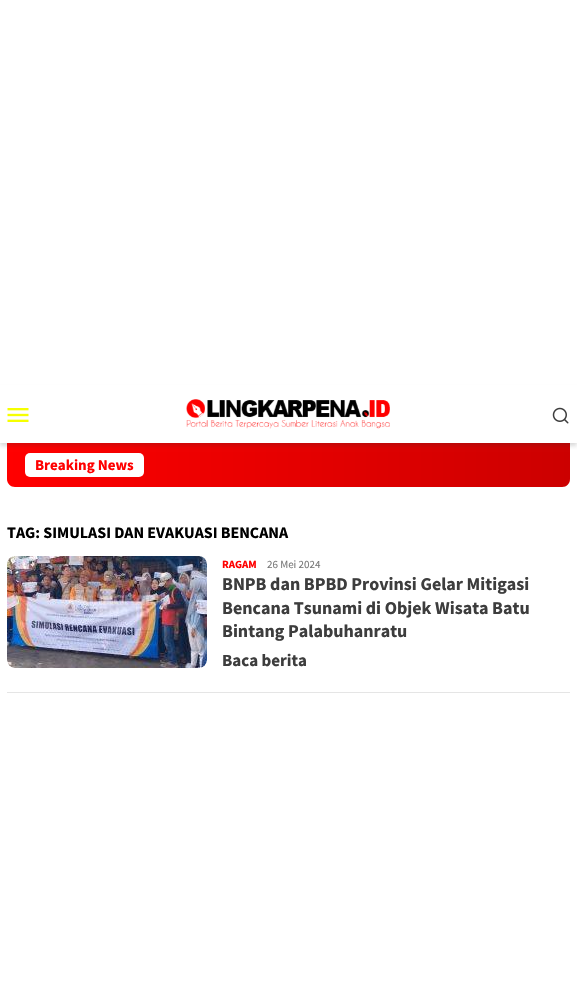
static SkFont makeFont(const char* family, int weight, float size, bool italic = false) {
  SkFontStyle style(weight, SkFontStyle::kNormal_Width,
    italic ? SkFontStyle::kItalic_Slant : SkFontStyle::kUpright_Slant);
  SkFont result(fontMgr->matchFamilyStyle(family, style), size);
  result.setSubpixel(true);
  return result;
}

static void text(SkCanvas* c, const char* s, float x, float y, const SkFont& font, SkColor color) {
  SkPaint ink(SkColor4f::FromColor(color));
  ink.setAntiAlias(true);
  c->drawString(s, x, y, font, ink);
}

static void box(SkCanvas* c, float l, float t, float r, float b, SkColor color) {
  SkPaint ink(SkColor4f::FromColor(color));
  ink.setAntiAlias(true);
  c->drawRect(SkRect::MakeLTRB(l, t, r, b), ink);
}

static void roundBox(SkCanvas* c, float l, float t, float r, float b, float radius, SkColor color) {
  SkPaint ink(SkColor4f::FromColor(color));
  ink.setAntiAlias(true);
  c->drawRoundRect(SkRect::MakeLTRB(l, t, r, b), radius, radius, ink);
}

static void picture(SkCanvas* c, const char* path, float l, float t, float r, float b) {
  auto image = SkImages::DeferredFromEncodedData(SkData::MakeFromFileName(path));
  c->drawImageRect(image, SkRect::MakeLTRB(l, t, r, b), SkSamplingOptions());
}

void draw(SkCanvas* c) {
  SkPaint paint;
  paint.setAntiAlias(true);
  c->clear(0xffffffff);
  paint.setColor(0xffff0000);
  c->drawPath(SkPathBuilder().moveTo(7, 443).lineTo(570, 443).lineTo(570, 479).cubicTo(570, 483.5f, 566.5f, 487, 562, 487).lineTo(15, 487).cubicTo(10.5f, 487, 7, 483.5f, 7, 479).close().detach(), paint);
  {
    const SkColor colors[] = {0x00000000, 0x33000000};
    const float stops[] = {0, 1};
    const SkPoint ends[] = {{7, 465}, {570, 465}};
    paint.setShader(SkGradientShader::MakeLinear(ends, colors, stops, 2, SkTileMode::kClamp));
    paint.setAlpha(255);
  }
  c->drawPath(SkPathBuilder().moveTo(7, 443).lineTo(570, 443).lineTo(570, 479).cubicTo(570, 483.5f, 566.5f, 487, 562, 487).lineTo(15, 487).cubicTo(10.5f, 487, 7, 483.5f, 7, 479).close().detach(), paint);
  paint.setShader(nullptr);
  paint.setColor(0x2e343434);
  paint.setMaskFilter(SkMaskFilter::MakeBlur(kNormal_SkBlurStyle, 2));
  c->drawRect(SkRect::MakeLTRB(0, 388, 577, 446), paint);
  paint.setMaskFilter(nullptr);
  box(c, 0, 385, 577, 443, 0xffffffff);
  picture(c, "img_01.png", 7, 408, 29, 422);
  picture(c, "img_02.png", 186, 399, 390, 429);
  picture(c, "img_03.png", 552, 407, 569, 424);
  roundBox(c, 25, 453, 144, 477, 5, 0xffffffff);
  SkFont face1 = makeFont("Source Sans Pro", 700, 15);
  text(c, "Breaking News", 35, 470, face1, 0xffff0000);
  SkFont face2 = makeFont("Source Sans Pro", 700, 16);
  text(c, "TAG: SIMULASI DAN EVAKUASI BENCANA", 7, 538, face2, 0xff000000);
  box(c, 7, 692, 570, 693, 0xffe5e5e5);
  picture(c, "img_04.png", 7, 556, 207, 668);
  SkFont face3 = makeFont("Source Sans Pro", 700, 11);
  text(c, "RAGAM", 222, 568, face3, 0xffff0000);
  SkFont face4 = makeFont("Source Sans Pro", 400, 11);
  text(c, "26 Mei 2024", 267, 568, face4, 0xff787878);
  SkFont face5 = makeFont("Source Sans Pro", 700, 18);
  text(c, "BNPB dan BPBD Provinsi Gelar Mitigasi", 222, 590, face5, 0xff3d3d3d);
  text(c, "Bencana Tsunami di Objek Wisata Batu", 222, 614, face5, 0xff3d3d3d);
  text(c, "Bintang Palabuhanratu", 222, 637, face5, 0xff3d3d3d);
  SkFont face6 = makeFont("Source Sans Pro", 700, 17);
  text(c, "Baca berita", 222, 666, face6, 0xff3d3d3d);
}
